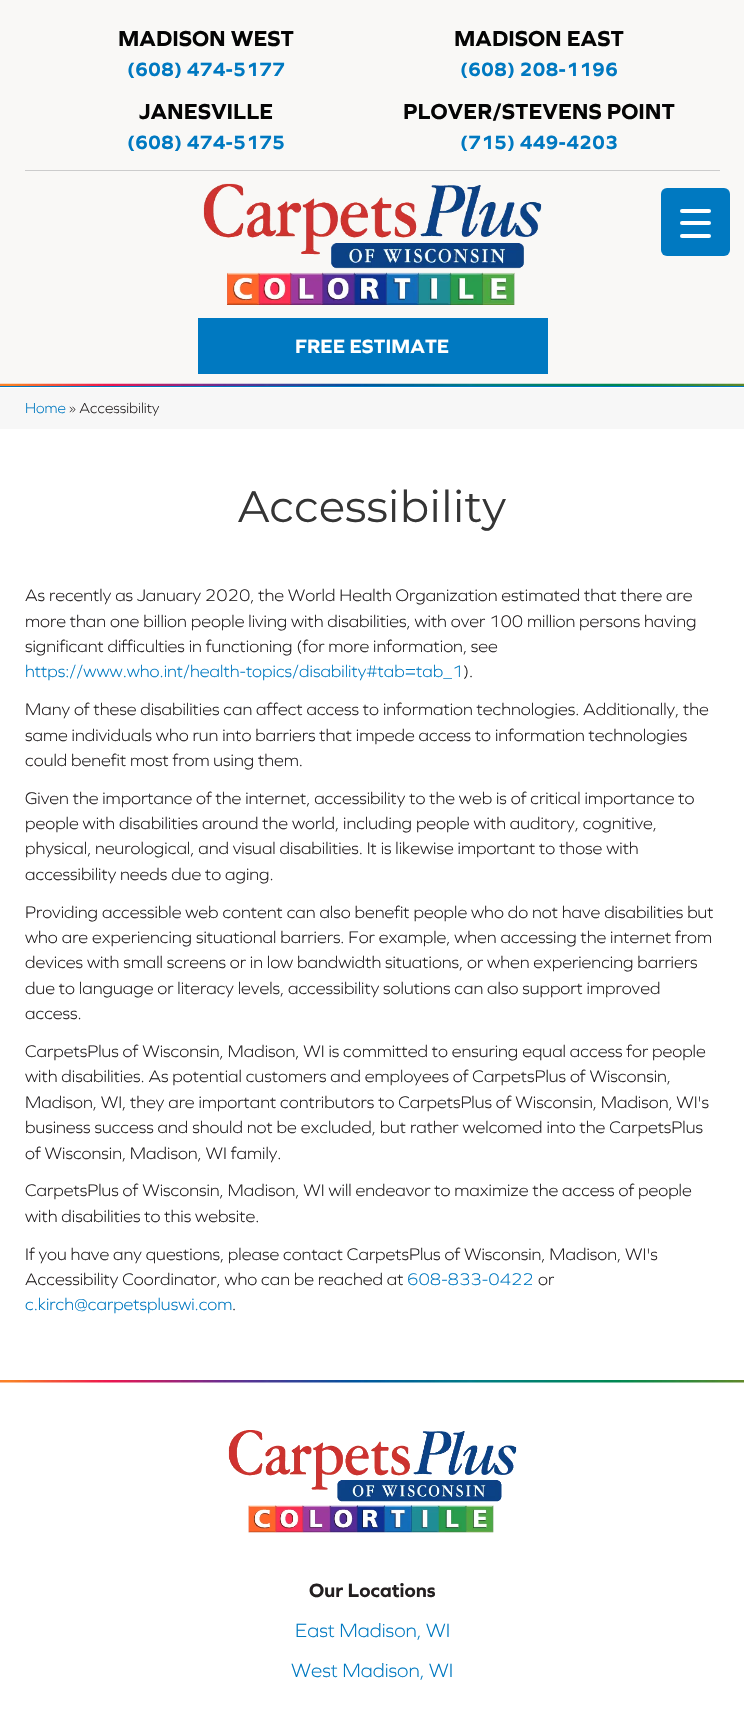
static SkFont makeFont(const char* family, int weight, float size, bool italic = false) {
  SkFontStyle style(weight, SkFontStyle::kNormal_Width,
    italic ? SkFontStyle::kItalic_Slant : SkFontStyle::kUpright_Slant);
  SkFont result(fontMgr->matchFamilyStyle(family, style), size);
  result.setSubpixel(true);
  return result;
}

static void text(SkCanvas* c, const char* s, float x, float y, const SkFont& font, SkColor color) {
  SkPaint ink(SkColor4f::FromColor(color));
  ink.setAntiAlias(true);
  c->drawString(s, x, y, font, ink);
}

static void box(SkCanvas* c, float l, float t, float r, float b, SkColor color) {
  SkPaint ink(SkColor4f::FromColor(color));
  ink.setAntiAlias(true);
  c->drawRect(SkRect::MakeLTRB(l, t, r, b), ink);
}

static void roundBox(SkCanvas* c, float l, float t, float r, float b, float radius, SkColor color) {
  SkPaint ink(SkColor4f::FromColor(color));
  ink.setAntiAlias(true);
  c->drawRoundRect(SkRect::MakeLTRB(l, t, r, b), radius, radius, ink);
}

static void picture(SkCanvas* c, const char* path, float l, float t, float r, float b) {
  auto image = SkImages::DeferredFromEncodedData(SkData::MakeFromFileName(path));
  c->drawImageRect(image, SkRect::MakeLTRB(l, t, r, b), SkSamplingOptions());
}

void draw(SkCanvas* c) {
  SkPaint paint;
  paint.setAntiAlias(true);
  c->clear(0xffffffff);
  box(c, 0, 0, 744, 384, 0xfff9f8f6);
  picture(c, "img_01.png", 0, 383, 744, 386);
  SkFont face1 = makeFont("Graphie", 700, 22.5f);
  text(c, "MADISON WEST", 118, 46, face1, 0xff050505);
  SkFont face2 = makeFont("Graphie", 700, 20);
  text(c, "(608) 474-5177", 127, 76, face2, 0xff0079c1);
  text(c, "MADISON EAST", 454, 46, face1, 0xff050505);
  text(c, "(608) 208-1196", 460, 76, face2, 0xff0079c1);
  text(c, "JANESVILLE", 139, 119, face1, 0xff050505);
  text(c, "(608) 474-5175", 127, 149, face2, 0xff0079c1);
  text(c, "PLOVER/STEVENS POINT", 403, 119, face1, 0xff050505);
  text(c, "(715) 449-4203", 460, 149, face2, 0xff0079c1);
  box(c, 25, 170, 720, 171, 0xffcccccc);
  picture(c, "img_02.png", 203, 183, 542, 305);
  box(c, 198, 318, 548, 374, 0xff0079c1);
  text(c, "FREE ESTIMATE", 295, 353, face2, 0xffffffff);
  box(c, 0, 386, 744, 387, 0xff0079c1);
  box(c, 0, 388, 744, 429, 0xfff7f7f7);
  SkFont face3 = makeFont("Graphie", 300, 15);
  text(c, "Home", 25, 413, face3, 0xff0079c1);
  text(c, "» Accessibility", 69, 413, face3, 0xff231f20);
  SkFont face4 = makeFont("Montserrat", 400, 43.75f);
  text(c, "Accessibility", 238, 522, face4, 0xff353535);
  SkFont face5 = makeFont("Graphie", 300, 17.5f);
  text(c, "As recently as January 2020, the World Health Organization estimated that there are", 25, 601, face5, 0xff231f20);
  text(c, "more than one billion people living with disabilities, with over 100 million persons having", 25, 627, face5, 0xff231f20);
  text(c, "significant difficulties in functioning (for more information, see", 25, 652, face5, 0xff231f20);
  text(c, "https://www.who.int/health-topics/disability#tab=tab_1", 25, 677, face5, 0xff0079c1);
  text(c, ").", 463, 677, face5, 0xff231f20);
  text(c, "Many of these disabilities can affect access to information technologies. Additionally, the", 25, 715, face5, 0xff231f20);
  text(c, "same individuals who run into barriers that impede access to information technologies", 25, 741, face5, 0xff231f20);
  text(c, "could benefit most from using them.", 25, 766, face5, 0xff231f20);
  text(c, "Given the importance of the internet, accessibility to the web is of critical importance to", 25, 804, face5, 0xff231f20);
  text(c, "people with disabilities around the world, including people with auditory, cognitive,", 25, 829, face5, 0xff231f20);
  text(c, "physical, neurological, and visual disabilities. It is likewise important to those with", 25, 854, face5, 0xff231f20);
  text(c, "accessibility needs due to aging.", 25, 880, face5, 0xff231f20);
  text(c, "Providing accessible web content can also benefit people who do not have disabilities but", 25, 918, face5, 0xff231f20);
  text(c, "who are experiencing situational barriers. For example, when accessing the internet from", 25, 943, face5, 0xff231f20);
  text(c, "devices with small screens or in low bandwidth situations, or when experiencing barriers", 25, 968, face5, 0xff231f20);
  text(c, "due to language or literacy levels, accessibility solutions can also support improved", 25, 994, face5, 0xff231f20);
  text(c, "access.", 25, 1019, face5, 0xff231f20);
  text(c, "CarpetsPlus of Wisconsin, Madison, WI is committed to ensuring equal access for people", 25, 1057, face5, 0xff231f20);
  text(c, "with disabilities. As potential customers and employees of CarpetsPlus of Wisconsin,", 25, 1082, face5, 0xff231f20);
  text(c, "Madison, WI, they are important contributors to CarpetsPlus of Wisconsin, Madison, WI's", 25, 1108, face5, 0xff231f20);
  text(c, "business success and should not be excluded, but rather welcomed into the CarpetsPlus", 25, 1133, face5, 0xff231f20);
  text(c, "of Wisconsin, Madison, WI family.", 25, 1159, face5, 0xff231f20);
  text(c, "CarpetsPlus of Wisconsin, Madison, WI will endeavor to maximize the access of people", 25, 1196, face5, 0xff231f20);
  text(c, "with disabilities to this website.", 25, 1222, face5, 0xff231f20);
  text(c, "If you have any questions, please contact CarpetsPlus of Wisconsin, Madison, WI's", 25, 1260, face5, 0xff231f20);
  text(c, "Accessibility Coordinator, who can be reached at", 25, 1285, face5, 0xff231f20);
  text(c, "608-833-0422", 407, 1285, face5, 0xff0079c1);
  text(c, "or", 538, 1285, face5, 0xff231f20);
  text(c, "c.kirch@carpetspluswi.com", 25, 1310, face5, 0xff0079c1);
  text(c, ".", 232, 1310, face5, 0xff231f20);
  picture(c, "img_03.png", 0, 1380, 744, 1383);
  picture(c, "img_04.png", 228, 1430, 517, 1533);
  text(c, "Our Locations", 309, 1597, face2, 0xff231f20);
  SkFont face6 = makeFont("Graphie", 300, 20);
  text(c, "East Madison, WI", 295, 1637, face6, 0xff0079c1);
  text(c, "West Madison, WI", 291, 1677, face6, 0xff0079c1);
  roundBox(c, 661, 188, 730, 256, 6, 0xff0079c1);
  roundBox(c, 680, 221, 711, 225, 2, 0xffffffff);
  roundBox(c, 680, 209, 711, 213, 2, 0xffffffff);
  roundBox(c, 680, 234, 711, 238, 2, 0xffffffff);
}
